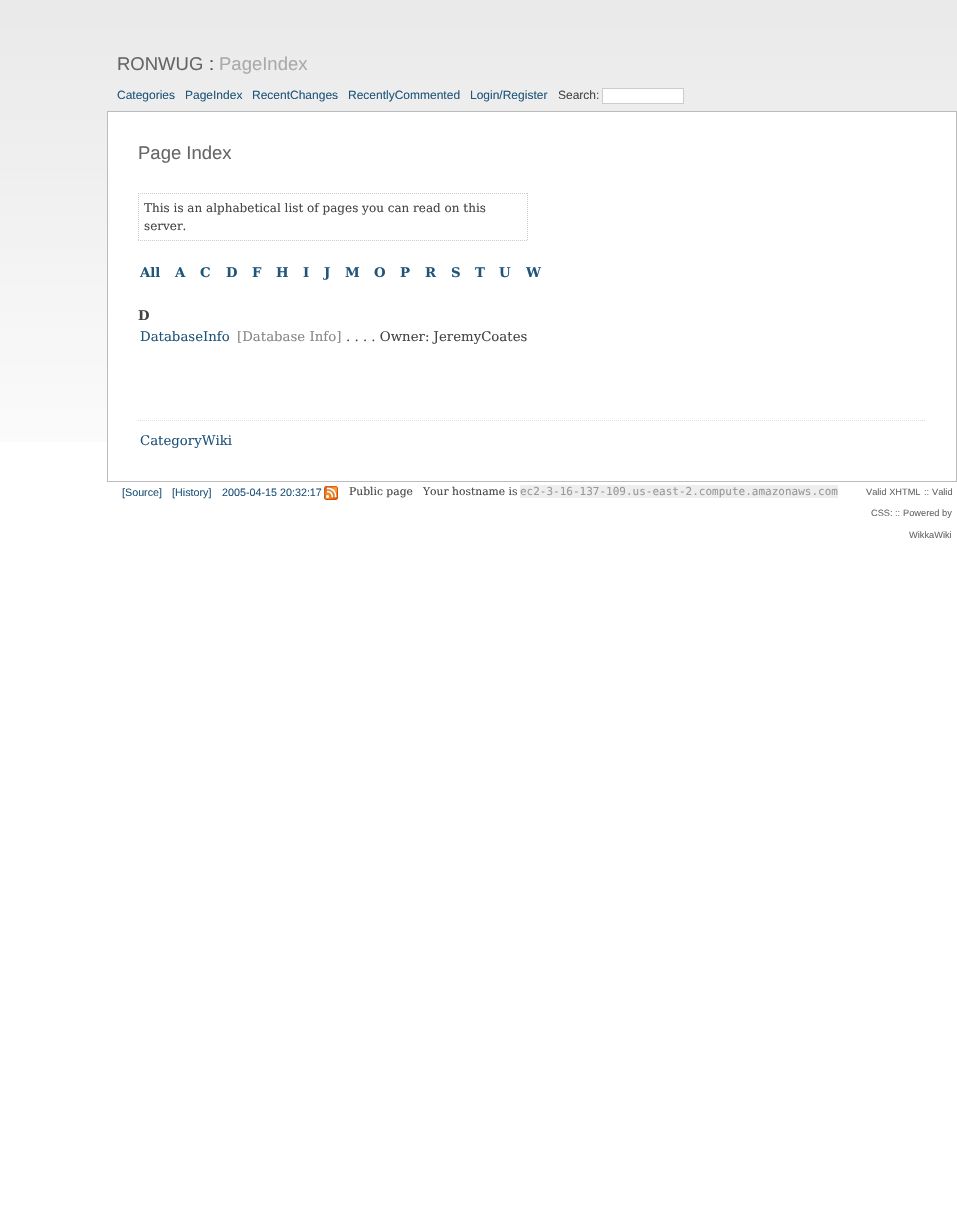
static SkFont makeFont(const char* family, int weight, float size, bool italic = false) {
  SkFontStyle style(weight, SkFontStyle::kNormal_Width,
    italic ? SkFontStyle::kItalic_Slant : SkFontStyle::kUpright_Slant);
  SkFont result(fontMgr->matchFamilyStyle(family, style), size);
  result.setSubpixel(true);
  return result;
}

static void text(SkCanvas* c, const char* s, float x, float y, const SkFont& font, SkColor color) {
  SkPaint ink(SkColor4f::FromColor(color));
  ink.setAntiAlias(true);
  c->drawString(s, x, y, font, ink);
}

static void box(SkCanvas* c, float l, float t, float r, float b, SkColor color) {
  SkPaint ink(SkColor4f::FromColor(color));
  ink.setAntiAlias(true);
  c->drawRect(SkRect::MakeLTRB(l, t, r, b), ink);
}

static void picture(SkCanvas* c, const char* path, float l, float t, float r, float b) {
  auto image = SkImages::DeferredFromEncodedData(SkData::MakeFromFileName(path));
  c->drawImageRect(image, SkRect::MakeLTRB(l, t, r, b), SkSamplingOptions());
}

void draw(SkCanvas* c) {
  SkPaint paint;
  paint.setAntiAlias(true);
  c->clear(0xffffffff);
  picture(c, "img_01.png", 0, 0, 957, 442);
  SkFont face1 = makeFont("Liberation Sans", 400, 18.5f);
  text(c, "RONWUG", 117, 70, face1, 0xff666666);
  text(c, ":", 209, 70, face1, 0xff444444);
  text(c, "PageIndex", 219, 70, face1, 0xffaaaaaa);
  SkFont face2 = makeFont("Liberation Sans", 400, 12);
  text(c, "Categories", 117, 99, face2, 0xff20557b);
  text(c, "PageIndex", 185, 99, face2, 0xff20557b);
  text(c, "RecentChanges", 252, 99, face2, 0xff20557b);
  text(c, "RecentlyCommented", 348, 99, face2, 0xff20557b);
  text(c, "Login/Register", 470, 99, face2, 0xff20557b);
  text(c, "Search:", 558, 99, face2, 0xff444444);
  paint.setColor(0xffffffff);
  c->drawRect(SkRect::MakeLTRB(602.5f, 88.5f, 683.5f, 103.5f), paint);
  paint.setStyle(SkPaint::kStroke_Style);
  paint.setStrokeWidth(1);
  paint.setColor(0xffcccccc);
  c->drawRect(SkRect::MakeLTRB(602.5f, 88.5f, 683.5f, 103.5f), paint);
  box(c, 108, 112, 956, 442, 0xffffffff);
  paint.setColor(0xffbbbbbb);
  c->drawRect(SkRect::MakeLTRB(107.5f, 111.5f, 956.5f, 481.5f), paint);
  text(c, "Page Index", 138, 159, face1, 0xff666666);
  paint.setColor(0xffcccccc);
  paint.setPathEffect(SkDashPathEffect::Make({{1, 1}}, 0));
  c->drawPath(SkPathBuilder().moveTo(138, 193.5f).lineTo(528, 193.5f).detach(), paint);
  paint.setPathEffect(nullptr);
  paint.setPathEffect(SkDashPathEffect::Make({{1, 1}}, 0));
  c->drawPath(SkPathBuilder().moveTo(527.5f, 193).lineTo(527.5f, 241).detach(), paint);
  paint.setPathEffect(nullptr);
  paint.setPathEffect(SkDashPathEffect::Make({{1, 1}}, 0));
  c->drawPath(SkPathBuilder().moveTo(138, 240.5f).lineTo(528, 240.5f).detach(), paint);
  paint.setPathEffect(nullptr);
  paint.setPathEffect(SkDashPathEffect::Make({{1, 1}}, 0));
  c->drawPath(SkPathBuilder().moveTo(138.5f, 193).lineTo(138.5f, 241).detach(), paint);
  paint.setPathEffect(nullptr);
  SkFont face3 = makeFont("DejaVu Serif", 400, 12);
  text(c, "This is an alphabetical list of pages you can read on this", 144, 212, face3, 0xff444444);
  text(c, "server.", 144, 230, face3, 0xff444444);
  SkFont face4 = makeFont("DejaVu Serif", 700, 13.3f);
  text(c, "All", 140, 277, face4, 0xff20557b);
  text(c, "A", 175, 277, face4, 0xff20557b);
  text(c, "C", 200, 277, face4, 0xff20557b);
  text(c, "D", 226, 277, face4, 0xff20557b);
  text(c, "F", 252, 277, face4, 0xff20557b);
  text(c, "H", 276, 277, face4, 0xff20557b);
  text(c, "I", 303, 277, face4, 0xff20557b);
  text(c, "J", 324, 277, face4, 0xff20557b);
  text(c, "M", 345, 277, face4, 0xff20557b);
  text(c, "O", 374, 277, face4, 0xff20557b);
  text(c, "P", 400, 277, face4, 0xff20557b);
  text(c, "R", 425, 277, face4, 0xff20557b);
  text(c, "S", 451, 277, face4, 0xff20557b);
  text(c, "T", 475, 277, face4, 0xff20557b);
  text(c, "U", 499, 277, face4, 0xff20557b);
  text(c, "W", 526, 277, face4, 0xff20557b);
  text(c, "D", 138, 320, face4, 0xff444444);
  SkFont face5 = makeFont("DejaVu Serif", 400, 13.3f);
  text(c, "DatabaseInfo", 140, 341, face5, 0xff20557b);
  text(c, "[Database Info]", 237, 341, face5, 0xff888888);
  text(c, ". . . . Owner: JeremyCoates", 346, 341, face5, 0xff444444);
  paint.setColor(0xffdddddd);
  paint.setPathEffect(SkDashPathEffect::Make({{1, 1}}, 0));
  c->drawPath(SkPathBuilder().moveTo(138, 420.5f).lineTo(926, 420.5f).detach(), paint);
  paint.setPathEffect(nullptr);
  text(c, "CategoryWiki", 140, 445, face5, 0xff20557b);
  SkFont face6 = makeFont("Liberation Sans", 400, 10.75f);
  text(c, "[Source]", 122, 496, face6, 0xff20557b);
  text(c, "[History]", 172, 496, face6, 0xff20557b);
  text(c, "2005-04-15 20:32:17", 222, 496, face6, 0xff20557b);
  picture(c, "img_02.png", 324, 486, 338, 500);
  SkFont face7 = makeFont("DejaVu Serif", 400, 10.75f);
  text(c, "Public page", 349, 495, face7, 0xff444444);
  text(c, "Your hostname is", 423, 495, face7, 0xff444444);
  box(c, 520, 485, 838, 498, 0xffeeeeee);
  SkFont face8 = makeFont("DejaVu Sans Mono", 400, 11);
  text(c, "ec2-3-16-137-109.us-east-2.compute.amazonaws.com", 520, 495, face8, 0xff999999);
  SkFont face9 = makeFont("Liberation Sans", 400, 9.25f);
  text(c, "Valid XHTML", 866, 495, face9, 0xff666666);
  text(c, "::", 924, 495, face9, 0xff777777);
  text(c, "Valid", 932, 495, face9, 0xff666666);
  text(c, "CSS:", 871, 516, face9, 0xff666666);
  text(c, "::", 895, 516, face9, 0xff777777);
  text(c, "Powered by", 903, 516, face9, 0xff666666);
  text(c, "WikkaWiki", 909, 538, face9, 0xff666666);
}
